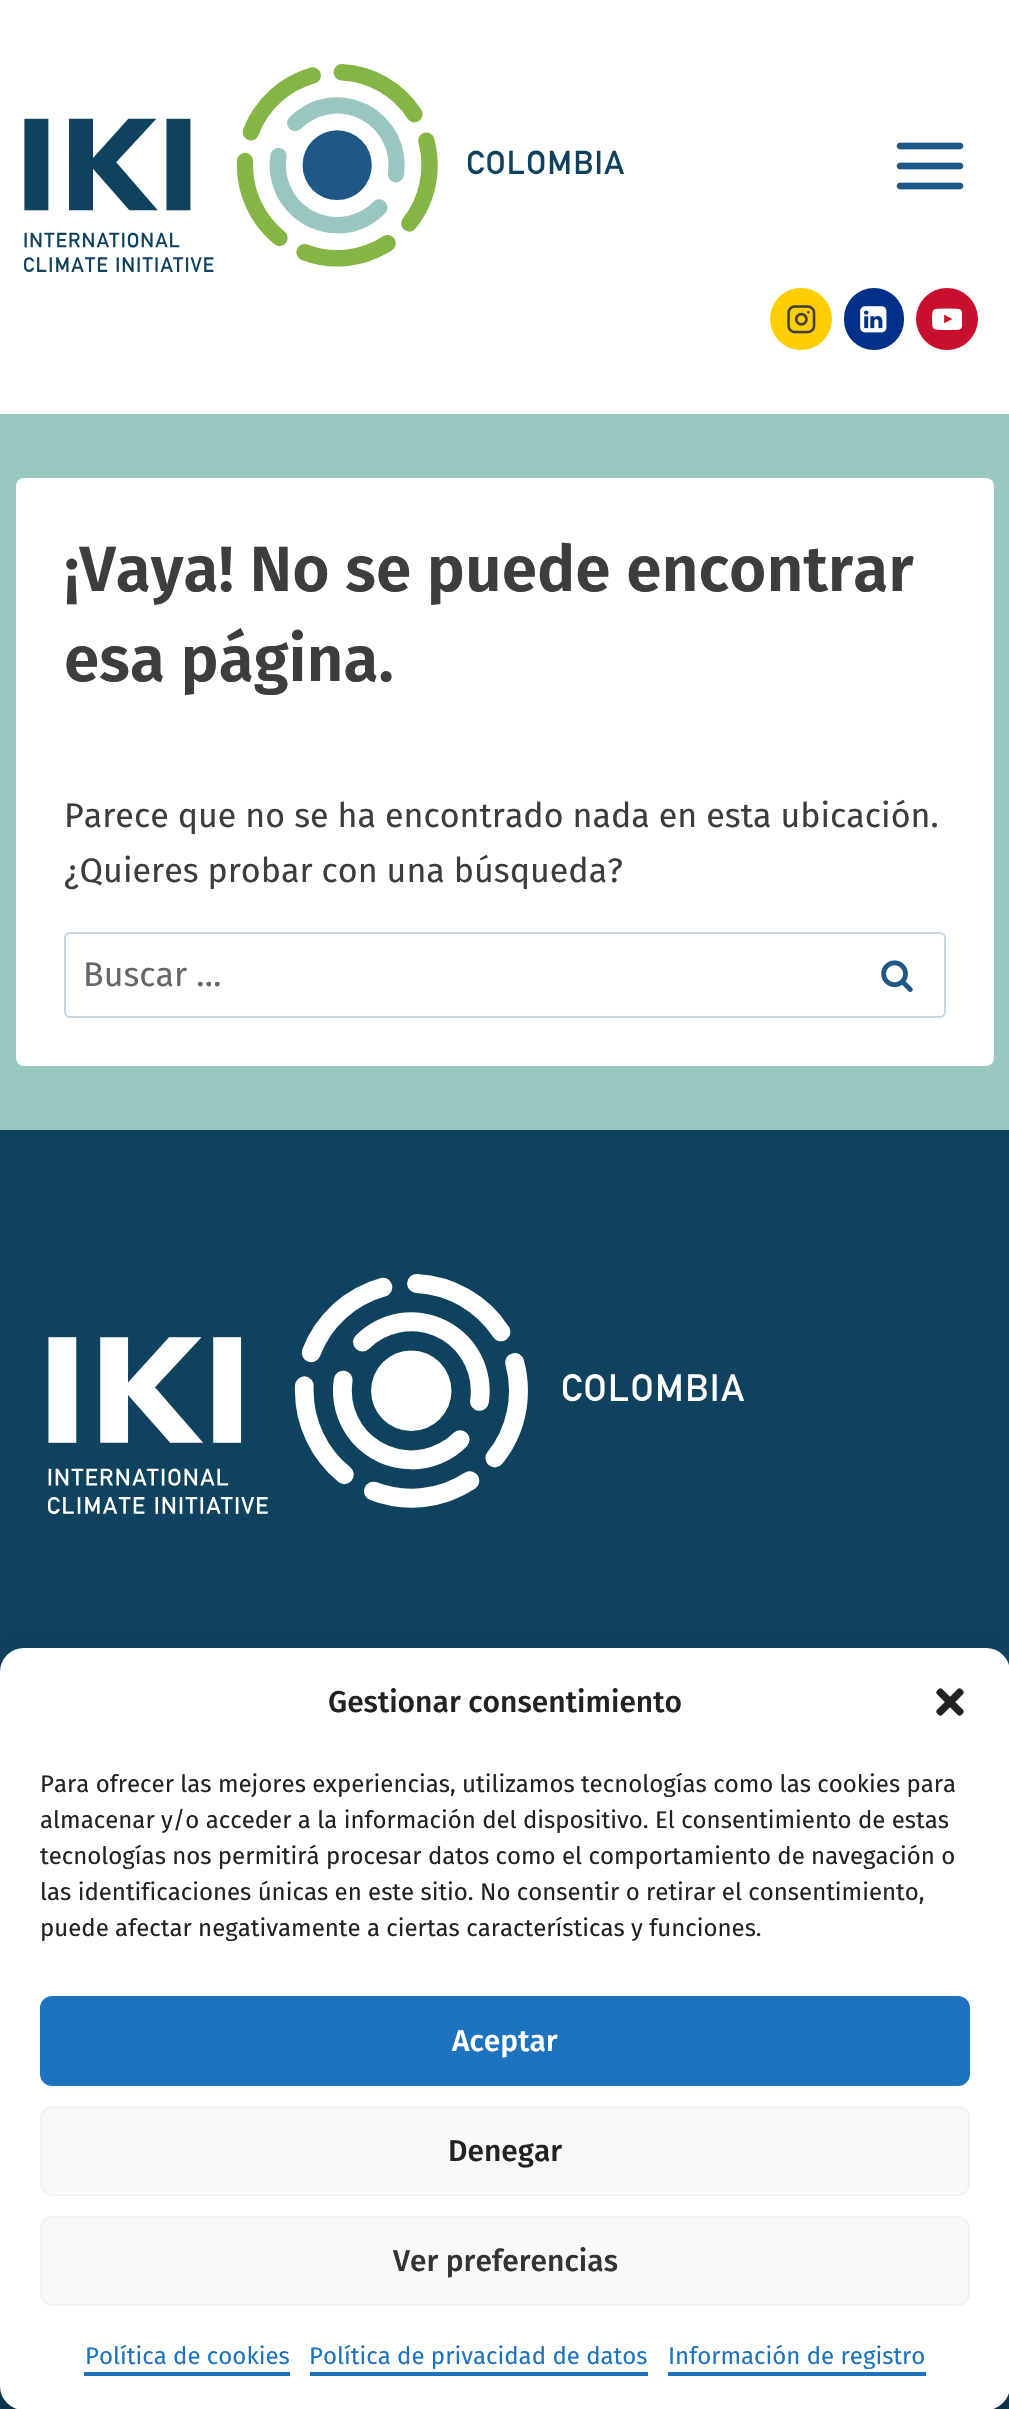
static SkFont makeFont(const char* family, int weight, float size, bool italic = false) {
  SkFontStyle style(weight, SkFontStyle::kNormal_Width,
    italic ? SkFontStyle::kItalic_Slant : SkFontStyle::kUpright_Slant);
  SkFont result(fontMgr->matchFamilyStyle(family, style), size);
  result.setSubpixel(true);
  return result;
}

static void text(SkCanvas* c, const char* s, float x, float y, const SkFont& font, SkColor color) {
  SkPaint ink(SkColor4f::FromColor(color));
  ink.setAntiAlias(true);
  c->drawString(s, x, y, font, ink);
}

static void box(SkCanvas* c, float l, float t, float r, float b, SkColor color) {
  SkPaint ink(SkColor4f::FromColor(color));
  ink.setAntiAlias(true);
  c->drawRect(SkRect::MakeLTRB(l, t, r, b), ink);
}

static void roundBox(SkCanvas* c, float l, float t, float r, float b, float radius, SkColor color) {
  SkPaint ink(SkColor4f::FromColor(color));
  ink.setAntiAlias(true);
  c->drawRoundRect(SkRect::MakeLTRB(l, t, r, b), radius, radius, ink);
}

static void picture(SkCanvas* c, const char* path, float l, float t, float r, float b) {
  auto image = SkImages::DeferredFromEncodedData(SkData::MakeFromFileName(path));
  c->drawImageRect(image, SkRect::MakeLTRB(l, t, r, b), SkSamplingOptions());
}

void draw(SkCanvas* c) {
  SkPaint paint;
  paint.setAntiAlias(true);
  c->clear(0xff99c7bf);
  box(c, 0, 0, 1009, 414, 0xffffffff);
  picture(c, "img_01.png", 24, 64, 624, 272);
  picture(c, "img_02.png", 896, 142, 964, 190);
  paint.setColor(0xffffcd00);
  c->drawCircle(801, 319, 31, paint);
  picture(c, "img_03.png", 787, 305, 816, 334);
  roundBox(c, 844, 288, 904, 350, 30, 0xff003087);
  picture(c, "img_04.png", 860, 306, 887, 333);
  paint.setColor(0xffc8102e);
  c->drawCircle(947, 319, 31, paint);
  picture(c, "img_05.png", 932, 308, 962, 331);
  roundBox(c, 16, 478, 994, 1066, 8, 0xffffffff);
  SkFont face1 = makeFont("Fira Sans", 600, 64);
  text(c, "¡Vaya! No se puede encontrar", 64, 591, face1, 0xff3d3d3d);
  text(c, "esa página.", 64, 681, face1, 0xff3d3d3d);
  SkFont face2 = makeFont("Fira Sans", 400, 34);
  text(c, "Parece que no se ha encontrado nada en esta ubicación.", 64, 827, face2, 0xff3d3d3d);
  text(c, "¿Quieres probar con una búsqueda?", 64, 882, face2, 0xff3d3d3d);
  paint.setStyle(SkPaint::kStroke_Style);
  paint.setStrokeWidth(2);
  paint.setColor(0xffcbd5e0);
  c->drawRoundRect(SkRect::MakeLTRB(65, 933, 945, 1017), 5, 5, paint);
  text(c, "Buscar …", 83, 986, face2, 0xff666666);
  picture(c, "img_06.png", 881, 960, 913, 992);
  box(c, 0, 1130, 1009, 2409, 0xff0f425e);
  picture(c, "img_07.png", 48, 1274, 744, 1514);
  paint.setStyle(SkPaint::kFill_Style);
  paint.setColor(0x3b000000);
  paint.setMaskFilter(SkMaskFilter::MakeBlur(kNormal_SkBlurStyle, 6));
  c->drawRoundRect(SkRect::MakeLTRB(0, 1660, 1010, 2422), 24, 24, paint);
  paint.setMaskFilter(nullptr);
  paint.setColor(0x30000000);
  paint.setMaskFilter(SkMaskFilter::MakeBlur(kNormal_SkBlurStyle, 20));
  c->drawRoundRect(SkRect::MakeLTRB(0, 1668, 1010, 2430), 24, 24, paint);
  paint.setMaskFilter(nullptr);
  roundBox(c, 0, 1648, 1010, 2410, 24, 0xffffffff);
  SkFont face3 = makeFont("Fira Sans", 500, 30);
  text(c, "Gestionar consentimiento", 328, 1712, face3, 0xff222222);
  picture(c, "img_08.png", 936, 1688, 964, 1716);
  SkFont face4 = makeFont("Fira Sans", 400, 24);
  text(c, "Para ofrecer las mejores experiencias, utilizamos tecnologías como las cookies para", 40, 1792, face4, 0xff222222);
  text(c, "almacenar y/o acceder a la información del dispositivo. El consentimiento de estas", 40, 1828, face4, 0xff222222);
  text(c, "tecnologías nos permitirá procesar datos como el comportamiento de navegación o", 40, 1864, face4, 0xff222222);
  text(c, "las identificaciones únicas en este sitio. No consentir o retirar el consentimiento,", 40, 1900, face4, 0xff222222);
  text(c, "puede afectar negativamente a ciertas características y funciones.", 40, 1936, face4, 0xff222222);
  paint.setColor(0xff1e73be);
  c->drawRoundRect(SkRect::MakeLTRB(41, 1997, 969, 2085), 11, 11, paint);
  paint.setStyle(SkPaint::kStroke_Style);
  c->drawRoundRect(SkRect::MakeLTRB(41, 1997, 969, 2085), 11, 11, paint);
  text(c, "Aceptar", 452, 2051, face3, 0xffffffff);
  paint.setStyle(SkPaint::kFill_Style);
  paint.setColor(0xfff9f9f9);
  c->drawRoundRect(SkRect::MakeLTRB(41, 2107, 969, 2195), 11, 11, paint);
  paint.setStyle(SkPaint::kStroke_Style);
  paint.setColor(0xfff2f2f2);
  c->drawRoundRect(SkRect::MakeLTRB(41, 2107, 969, 2195), 11, 11, paint);
  text(c, "Denegar", 448, 2161, face3, 0xff222222);
  paint.setStyle(SkPaint::kFill_Style);
  paint.setColor(0xfff9f9f9);
  c->drawRoundRect(SkRect::MakeLTRB(41, 2217, 969, 2305), 11, 11, paint);
  paint.setStyle(SkPaint::kStroke_Style);
  paint.setColor(0xfff2f2f2);
  c->drawRoundRect(SkRect::MakeLTRB(41, 2217, 969, 2305), 11, 11, paint);
  text(c, "Ver preferencias", 393, 2271, face3, 0xff333333);
  text(c, "Política de cookies", 85, 2364, face4, 0xff1e73be);
  box(c, 84, 2372, 290, 2376, 0xff1e73be);
  text(c, "Política de privacidad de datos", 309, 2364, face4, 0xff1e73be);
  box(c, 310, 2372, 648, 2376, 0xff1e73be);
  text(c, "Información de registro", 668, 2364, face4, 0xff1e73be);
  box(c, 668, 2372, 926, 2376, 0xff1e73be);
}
